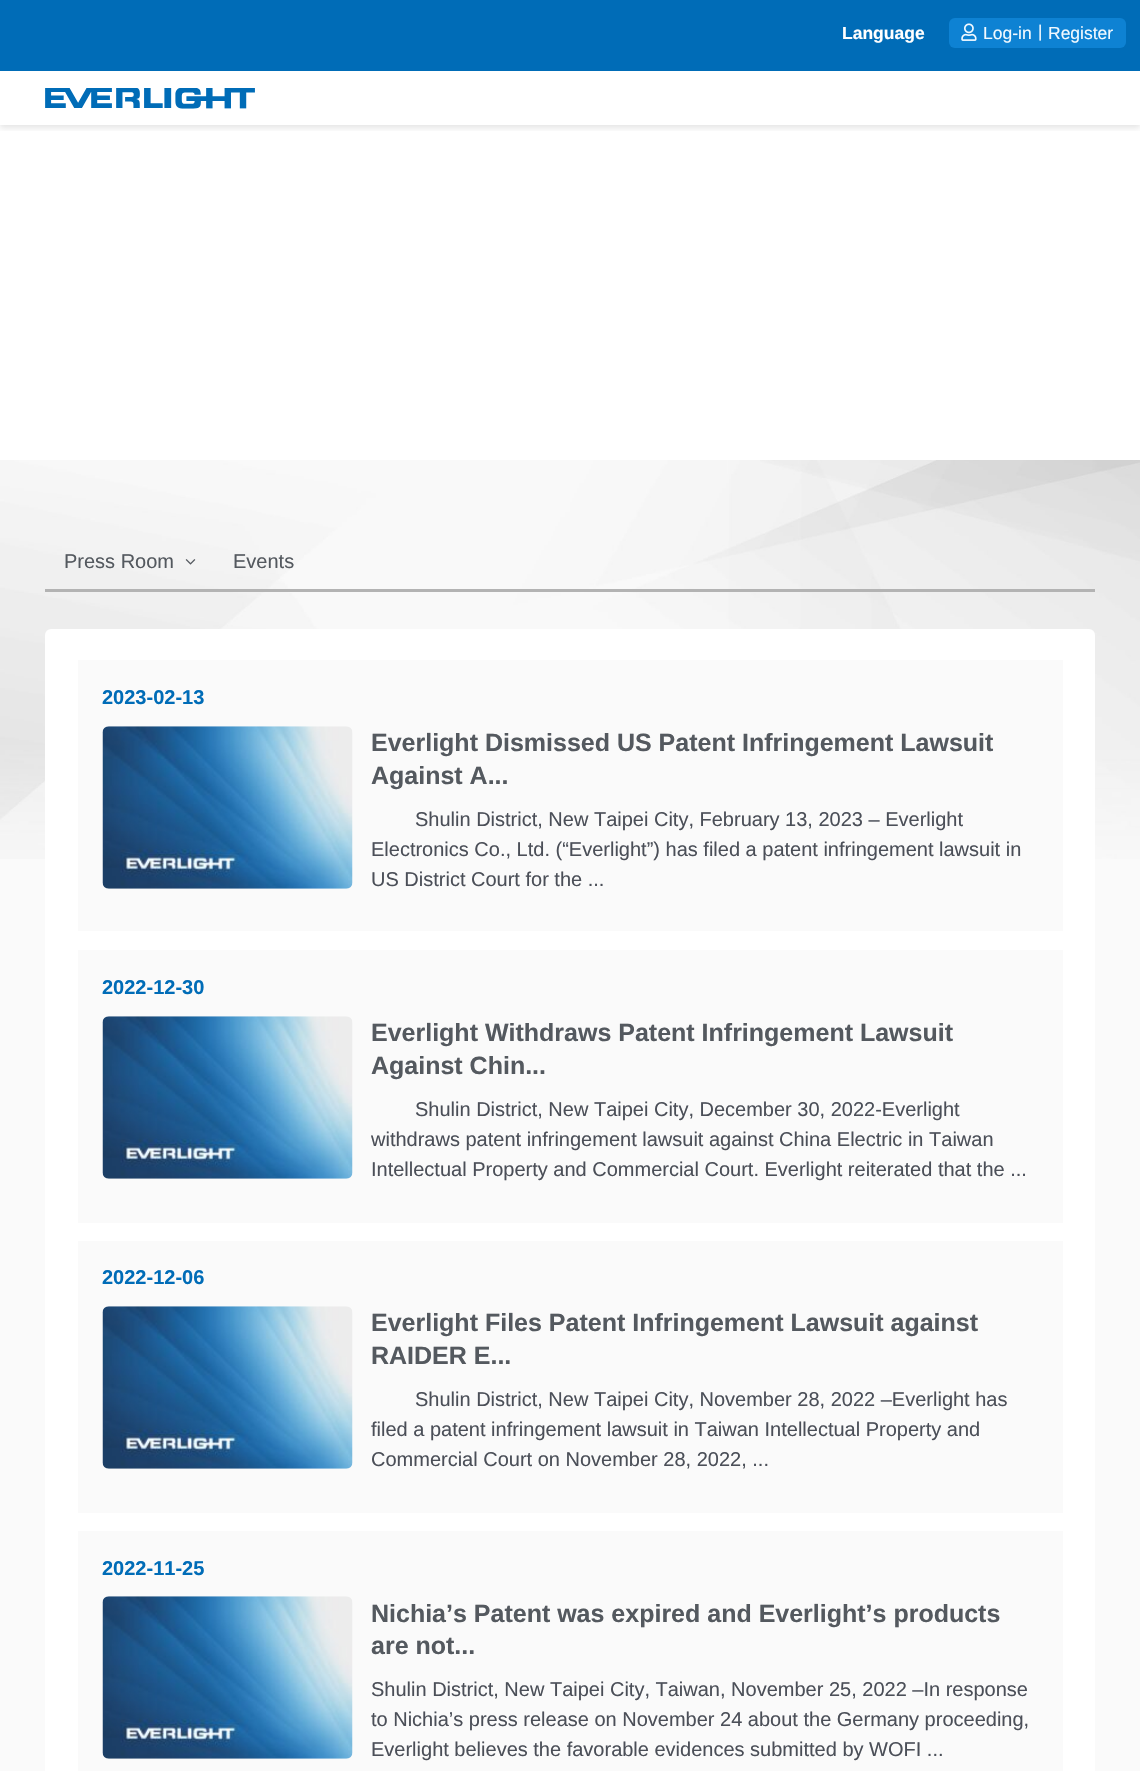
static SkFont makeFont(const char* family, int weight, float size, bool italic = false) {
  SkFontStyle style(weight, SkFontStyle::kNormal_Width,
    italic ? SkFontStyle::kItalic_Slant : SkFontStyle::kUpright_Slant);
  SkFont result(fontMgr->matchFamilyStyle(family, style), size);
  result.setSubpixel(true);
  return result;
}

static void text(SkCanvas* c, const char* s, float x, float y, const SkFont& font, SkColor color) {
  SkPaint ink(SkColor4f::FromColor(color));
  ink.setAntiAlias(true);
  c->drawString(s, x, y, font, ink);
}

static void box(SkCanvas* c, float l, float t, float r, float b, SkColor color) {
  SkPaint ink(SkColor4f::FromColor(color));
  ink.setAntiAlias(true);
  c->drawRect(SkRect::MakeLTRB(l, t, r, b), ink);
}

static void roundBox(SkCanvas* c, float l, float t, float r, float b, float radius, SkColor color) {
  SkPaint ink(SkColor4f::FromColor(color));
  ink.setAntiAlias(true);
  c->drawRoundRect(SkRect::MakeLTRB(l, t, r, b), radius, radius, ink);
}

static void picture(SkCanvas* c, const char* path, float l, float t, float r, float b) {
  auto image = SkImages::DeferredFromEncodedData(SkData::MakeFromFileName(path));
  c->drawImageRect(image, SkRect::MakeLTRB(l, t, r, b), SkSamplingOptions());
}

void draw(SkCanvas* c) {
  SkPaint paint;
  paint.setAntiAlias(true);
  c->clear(0xffffffff);
  c->save();
  c->clipRect(SkRect::MakeLTRB(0, 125, 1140, 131));
  paint.setColor(0x1a000000);
  paint.setMaskFilter(SkMaskFilter::MakeBlur(kNormal_SkBlurStyle, 3));
  c->drawRect(SkRect::MakeLTRB(0, 68, 1140, 128), paint);
  paint.setMaskFilter(nullptr);
  c->restore();
  box(c, 0, 0, 1140, 71, 0xff006cb7);
  picture(c, "img_01.png", 45, 88, 255, 109);
  SkFont face1 = makeFont("Liberation Sans", 700, 17.5f);
  text(c, "Language", 842, 39, face1, 0xffffffff);
  roundBox(c, 949, 18, 1126, 48, 6, 0xff0e82d3);
  picture(c, "img_02.png", 961, 23, 977, 41);
  SkFont face2 = makeFont("Liberation Sans", 400, 17.5f);
  text(c, "Log-in", 983, 39, face2, 0xfff1f9ff);
  SkFont face3 = makeFont("Liberation Sans", 400, 17);
  text(c, "|", 1038, 37, face3, 0xfff1f9ff);
  text(c, "Register", 1048, 39, face2, 0xfff1f9ff);
  box(c, 0, 859, 1140, 1771, 0xfffafafa);
  picture(c, "img_03.png", 0, 460, 1140, 859);
  box(c, 45, 589, 1095, 592, 0xffb3b3b3);
  SkFont face4 = makeFont("Liberation Sans", 400, 20);
  text(c, "Press Room", 64, 568, face4, 0xff54595f);
  picture(c, "img_04.png", 185, 559, 196, 565);
  text(c, "Events", 233, 568, face4, 0xff54595f);
  roundBox(c, 45, 629, 1095, 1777, 6, 0xffffffff);
  box(c, 78, 660, 1063, 931, 0xfffafafa);
  SkFont face5 = makeFont("Liberation Sans", 700, 20);
  text(c, "2023-02-13", 102, 704, face5, 0xff006cb7);
  picture(c, "img_05.png", 102, 726, 353, 889);
  SkFont face6 = makeFont("Liberation Sans", 700, 25);
  text(c, "Everlight Dismissed US Patent Infringement Lawsuit", 371, 751, face6, 0xff54595f);
  text(c, "Against A...", 371, 784, face6, 0xff54595f);
  text(c, "Shulin District, New Taipei City, February 13, 2023 – Everlight", 415, 826, face4, 0xff4b4f58);
  text(c, "Electronics Co., Ltd. (“Everlight”) has filed a patent infringement lawsuit in", 371, 856, face4, 0xff4b4f58);
  text(c, "US District Court for the ...", 371, 886, face4, 0xff4b4f58);
  box(c, 78, 950, 1063, 1223, 0xfffafafa);
  text(c, "2022-12-30", 102, 994, face5, 0xff006cb7);
  picture(c, "img_06.png", 102, 1016, 353, 1179);
  text(c, "Everlight Withdraws Patent Infringement Lawsuit", 371, 1041, face6, 0xff54595f);
  text(c, "Against Chin...", 371, 1074, face6, 0xff54595f);
  text(c, "Shulin District, New Taipei City, December 30, 2022-Everlight", 415, 1116, face4, 0xff4b4f58);
  text(c, "withdraws patent infringement lawsuit against China Electric in Taiwan", 371, 1146, face4, 0xff4b4f58);
  text(c, "Intellectual Property and Commercial Court. Everlight reiterated that the ...", 371, 1176, face4, 0xff4b4f58);
  box(c, 78, 1241, 1063, 1513, 0xfffafafa);
  text(c, "2022-12-06", 102, 1284, face5, 0xff006cb7);
  picture(c, "img_05.png", 102, 1306, 353, 1469);
  text(c, "Everlight Files Patent Infringement Lawsuit against", 371, 1331, face6, 0xff54595f);
  text(c, "RAIDER E...", 371, 1364, face6, 0xff54595f);
  text(c, "Shulin District, New Taipei City, November 28, 2022 –Everlight has", 415, 1406, face4, 0xff4b4f58);
  text(c, "filed a patent infringement lawsuit in Taiwan Intellectual Property and", 371, 1436, face4, 0xff4b4f58);
  text(c, "Commercial Court on November 28, 2022, ...", 371, 1466, face4, 0xff4b4f58);
  box(c, 78, 1531, 1063, 1771, 0xfffafafa);
  text(c, "2022-11-25", 102, 1575, face5, 0xff006cb7);
  picture(c, "img_05.png", 102, 1596, 353, 1759);
  text(c, "Nichia’s Patent was expired and Everlight’s products", 371, 1622, face6, 0xff54595f);
  text(c, "are not...", 371, 1654, face6, 0xff54595f);
  text(c, "Shulin District, New Taipei City, Taiwan, November 25, 2022 –In response", 371, 1696, face4, 0xff4b4f58);
  text(c, "to Nichia’s press release on November 24 about the Germany proceeding,", 371, 1726, face4, 0xff4b4f58);
  text(c, "Everlight believes the favorable evidences submitted by WOFI ...", 371, 1756, face4, 0xff4b4f58);
}
